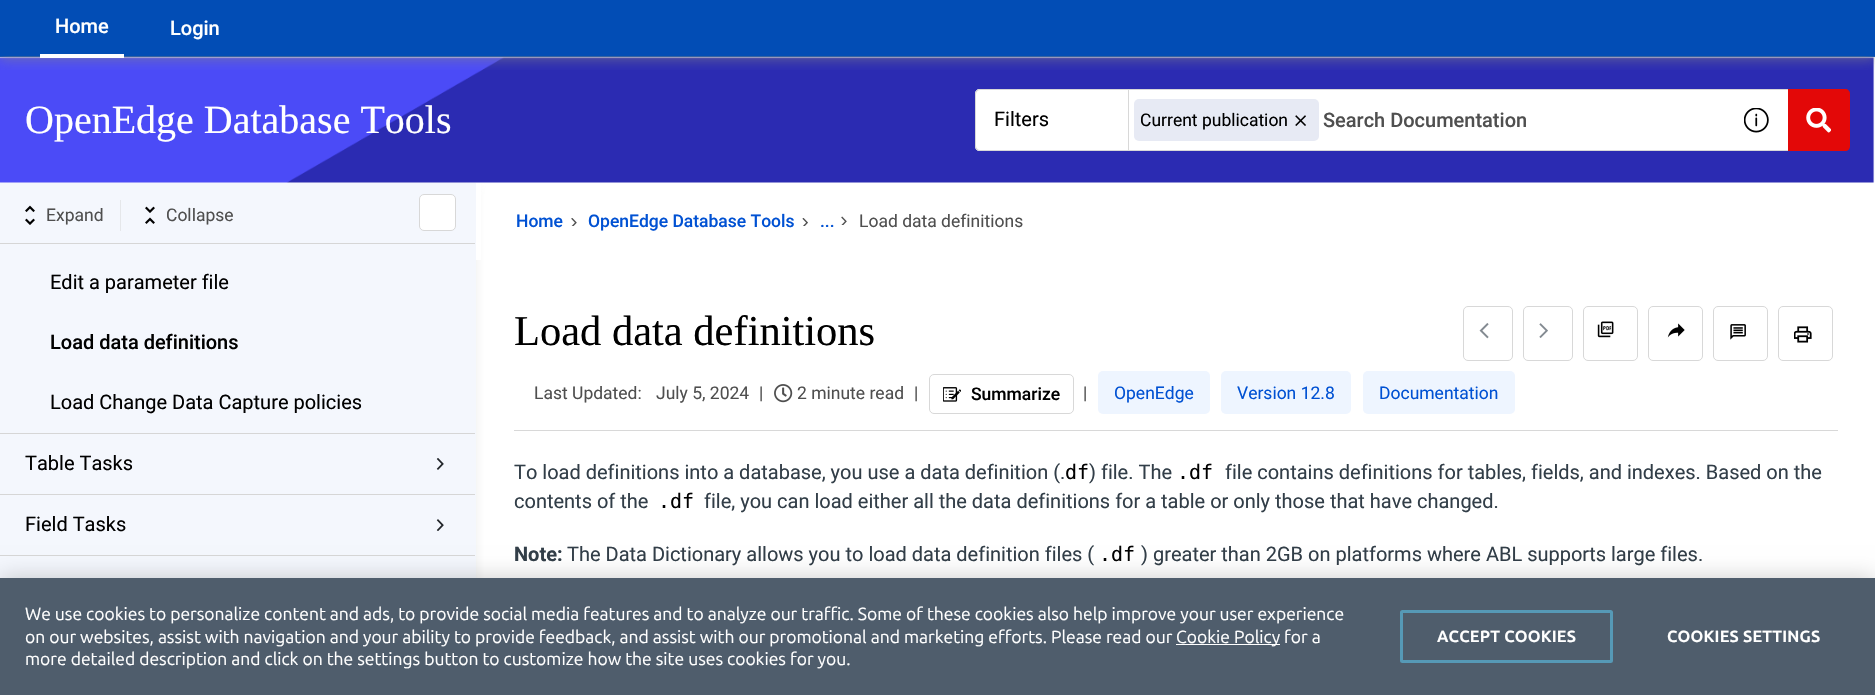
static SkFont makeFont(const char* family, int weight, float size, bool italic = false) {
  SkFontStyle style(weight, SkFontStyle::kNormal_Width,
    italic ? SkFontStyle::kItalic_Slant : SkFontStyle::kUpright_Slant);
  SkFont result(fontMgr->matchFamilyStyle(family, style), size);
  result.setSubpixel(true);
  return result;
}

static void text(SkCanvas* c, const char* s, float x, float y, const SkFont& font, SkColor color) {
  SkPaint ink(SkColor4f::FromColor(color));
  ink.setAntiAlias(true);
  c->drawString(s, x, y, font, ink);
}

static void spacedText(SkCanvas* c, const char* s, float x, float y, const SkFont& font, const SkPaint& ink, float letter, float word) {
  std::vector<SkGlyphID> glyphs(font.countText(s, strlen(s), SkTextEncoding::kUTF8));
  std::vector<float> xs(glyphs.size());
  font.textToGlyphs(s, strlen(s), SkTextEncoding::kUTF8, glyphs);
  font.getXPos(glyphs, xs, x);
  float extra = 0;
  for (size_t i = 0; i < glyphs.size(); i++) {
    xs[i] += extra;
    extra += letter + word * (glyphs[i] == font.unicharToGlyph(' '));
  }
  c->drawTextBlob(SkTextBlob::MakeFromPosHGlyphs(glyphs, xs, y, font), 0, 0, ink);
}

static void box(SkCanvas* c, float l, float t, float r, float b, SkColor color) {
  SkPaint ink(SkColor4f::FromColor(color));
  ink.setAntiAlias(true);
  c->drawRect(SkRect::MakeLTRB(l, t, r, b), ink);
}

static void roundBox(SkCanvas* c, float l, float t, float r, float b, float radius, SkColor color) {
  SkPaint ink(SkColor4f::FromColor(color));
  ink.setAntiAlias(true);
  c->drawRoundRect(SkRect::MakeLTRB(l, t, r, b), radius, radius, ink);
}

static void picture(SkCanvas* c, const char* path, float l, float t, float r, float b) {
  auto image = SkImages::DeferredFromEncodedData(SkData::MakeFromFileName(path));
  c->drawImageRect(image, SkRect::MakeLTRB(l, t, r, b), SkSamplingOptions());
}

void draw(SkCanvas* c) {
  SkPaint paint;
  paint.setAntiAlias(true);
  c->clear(0xffffffff);
  box(c, 0, 0, 1875, 57, 0xff024db5);
  paint.setColor(0x40b5b7b3);
  paint.setMaskFilter(SkMaskFilter::MakeBlur(kNormal_SkBlurStyle, 5));
  c->drawRect(SkRect::MakeLTRB(0, 185, 476, 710), paint);
  paint.setMaskFilter(nullptr);
  picture(c, "img_01.png", 0, 57, 1875, 183);
  c->save();
  c->clipRect(SkRect::MakeLTRB(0, 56, 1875, 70));
  paint.setColor(0x9e838486);
  paint.setMaskFilter(SkMaskFilter::MakeBlur(kNormal_SkBlurStyle, 6));
  c->drawRect(SkRect::MakeLTRB(0, 3, 1875, 59), paint);
  paint.setMaskFilter(nullptr);
  c->restore();
  box(c, 40, 54, 124, 58, 0xffffffff);
  SkFont face1 = makeFont("Roboto", 500, 20);
  text(c, "Home", 55, 33, face1, 0xffffffff);
  text(c, "Login", 170, 35, face1, 0xffffffff);
  SkFont face2 = makeFont("Liberation Serif", 400, 40);
  text(c, "OpenEdge Database Tools", 25, 133, face2, 0xffffffff);
  paint.setColor(0xffffffff);
  c->drawPath(SkPathBuilder().moveTo(980, 89).lineTo(1128, 89).lineTo(1128, 151).lineTo(980, 151).cubicTo(977, 151, 975, 149, 975, 146).lineTo(975, 94).cubicTo(975, 91, 977, 89, 980, 89).close().detach(), paint);
  paint.setColor(0xffd8d8d8);
  c->drawPath(SkPathBuilder(SkPathFillType::kEvenOdd).moveTo(980, 89).lineTo(1128, 89).lineTo(1128, 151).lineTo(980, 151).cubicTo(977, 151, 975, 149, 975, 146).lineTo(975, 94).cubicTo(975, 91, 977, 89, 980, 89).close().moveTo(980, 90).lineTo(1128, 90).lineTo(1128, 150).lineTo(980, 150).cubicTo(978, 150, 976, 148, 976, 146).lineTo(976, 94).cubicTo(976, 92, 978, 90, 980, 90).close().detach(), paint);
  SkFont face3 = makeFont("Roboto", 400, 20);
  text(c, "Filters", 994, 126, face3, 0xff000000);
  box(c, 1129, 90, 1788, 150, 0xffffffff);
  box(c, 1128, 89, 1788, 90, 0xffd8d8d8);
  box(c, 1128, 150, 1788, 151, 0xffd8d8d8);
  picture(c, "img_02.png", 1744, 108, 1769, 133);
  paint.setColor(0xffe30808);
  c->drawPath(SkPathBuilder().moveTo(1788, 89).lineTo(1845, 89).cubicTo(1848, 89, 1850, 91, 1850, 94).lineTo(1850, 146).cubicTo(1850, 149, 1848, 151, 1845, 151).lineTo(1788, 151).close().detach(), paint);
  picture(c, "img_03.png", 1806, 108, 1831, 133);
  roundBox(c, 1134, 99, 1319, 141, 5, 0xffe7eaf4);
  SkFont face4 = makeFont("Roboto", 400, 17.5f);
  text(c, "Current publication", 1140, 126, face4, 0xff000000);
  picture(c, "img_04.png", 1295, 115, 1306, 126);
  box(c, 1128, 89, 1129, 151, 0xffd8d8d8);
  text(c, "Search Documentation", 1323, 127, face1, 0xff4f4f4f);
  box(c, 0, 183, 476, 578, 0xfff4f7fd);
  box(c, 0, 243, 475, 244, 0xffd6d6d6);
  picture(c, "img_05.png", 25, 205, 35, 225);
  text(c, "Expand", 46, 221, face4, 0xff4f4f4f);
  box(c, 120, 200, 121, 231, 0xffe5e7ea);
  picture(c, "img_06.png", 145, 206, 155, 224);
  text(c, "Collapse", 166, 221, face4, 0xff4f4f4f);
  paint.setColor(0xffffffff);
  c->drawRoundRect(SkRect::MakeLTRB(419.5f, 194.5f, 455.5f, 230.5f), 4.5f, 4.5f, paint);
  paint.setStyle(SkPaint::kStroke_Style);
  paint.setStrokeWidth(1);
  paint.setColor(0xffd8d8d8);
  c->drawRoundRect(SkRect::MakeLTRB(419.5f, 194.5f, 455.5f, 230.5f), 4.5f, 4.5f, paint);
  box(c, 0, 433, 475, 434, 0xffd6d6d6);
  text(c, "Edit a parameter file", 50, 289, face3, 0xff000000);
  text(c, "Load data definitions", 50, 349, face1, 0xff000000);
  text(c, "Load Change Data Capture policies", 50, 409, face3, 0xff000000);
  box(c, 0, 494, 475, 495, 0xffd6d6d6);
  text(c, "Table Tasks", 25, 470, face3, 0xff000000);
  picture(c, "img_07.png", 436, 458, 444, 470);
  box(c, 0, 555, 475, 556, 0xffd6d6d6);
  text(c, "Field Tasks", 25, 531, face3, 0xff000000);
  picture(c, "img_08.png", 436, 519, 444, 531);
  box(c, 476, 183, 481, 260, 0xffffffff);
  SkFont face5 = makeFont("Roboto", 500, 17.5f);
  text(c, "Home", 516, 227, face5, 0xff0051d3);
  picture(c, "img_09.png", 571, 218, 577, 226);
  text(c, "OpenEdge Database Tools", 588, 227, face5, 0xff0051d3);
  picture(c, "img_10.png", 802, 218, 808, 226);
  picture(c, "img_11.png", 841, 216, 847, 225);
  text(c, "...", 820, 227, face5, 0xff0051d3);
  text(c, "Load data definitions", 859, 227, face4, 0xff4f4f4f);
  box(c, 514, 430, 1838, 431, 0xffd8d8d8);
  SkFont face6 = makeFont("Liberation Serif", 400, 42.5f);
  text(c, "Load data definitions", 514, 345, face6, 0xff000000);
  c->drawRoundRect(SkRect::MakeLTRB(1463.5f, 306.5f, 1512.5f, 360.5f), 4.5f, 4.5f, paint);
  picture(c, "img_12.png", 1479, 323, 1489, 339);
  c->drawRoundRect(SkRect::MakeLTRB(1523.5f, 306.5f, 1572.5f, 360.5f), 4.5f, 4.5f, paint);
  picture(c, "img_13.png", 1539, 323, 1548, 338);
  c->drawRoundRect(SkRect::MakeLTRB(1583.5f, 306.5f, 1637.5f, 360.5f), 4.5f, 4.5f, paint);
  picture(c, "img_14.png", 1597, 321, 1614, 338);
  c->drawRoundRect(SkRect::MakeLTRB(1648.5f, 306.5f, 1702.5f, 360.5f), 4.5f, 4.5f, paint);
  picture(c, "img_15.png", 1667, 323, 1685, 338);
  c->drawRoundRect(SkRect::MakeLTRB(1713.5f, 306.5f, 1767.5f, 360.5f), 4.5f, 4.5f, paint);
  picture(c, "img_16.png", 1730, 324, 1746, 340);
  c->drawRoundRect(SkRect::MakeLTRB(1778.5f, 306.5f, 1832.5f, 360.5f), 4.5f, 4.5f, paint);
  picture(c, "img_17.png", 1794, 326, 1812, 343);
  text(c, "Last Updated:", 534, 399, face4, 0xff4f4f4f);
  text(c, "July 5, 2024", 656, 399, face4, 0xff4f4f4f);
  text(c, "|", 759, 399, face4, 0xff4f4f4f);
  picture(c, "img_18.png", 774, 384, 793, 403);
  text(c, "2 minute read", 797, 399, face4, 0xff4f4f4f);
  text(c, "|", 914, 399, face4, 0xff4f4f4f);
  c->drawRoundRect(SkRect::MakeLTRB(929.5f, 374.5f, 1073.5f, 413.5f), 4.5f, 4.5f, paint);
  picture(c, "img_19.png", 943, 387, 961, 402);
  text(c, "Summarize", 971, 400, face5, 0xff000000);
  text(c, "|", 1083, 399, face4, 0xff4f4f4f);
  roundBox(c, 1098, 371, 1210, 414, 5, 0xffeef5ff);
  text(c, "OpenEdge", 1114, 399, face4, 0xff0051d3);
  roundBox(c, 1221, 371, 1351, 414, 5, 0xffeef5ff);
  text(c, "Version 12.8", 1237, 399, face4, 0xff0051d3);
  roundBox(c, 1363, 371, 1515, 414, 5, 0xffeef5ff);
  text(c, "Documentation", 1379, 399, face4, 0xff0051d3);
  text(c, "To load definitions into a database, you use a data definition (.", 514, 479, face3, 0xff323e48);
  SkFont face7 = makeFont("DejaVu Sans Mono", 400, 20);
  text(c, "df", 1065, 479, face7, 0xff000000);
  text(c, ") file. The", 1089, 479, face3, 0xff323e48);
  text(c, ".df", 1177, 479, face7, 0xff000000);
  text(c, "file contains definitions for tables, fields, and indexes. Based on the", 1225, 479, face3, 0xff323e48);
  text(c, "contents of the", 514, 508, face3, 0xff323e48);
  text(c, ".df", 658, 508, face7, 0xff000000);
  text(c, "file, you can load either all the data definitions for a table or only those that have changed.", 704, 508, face3, 0xff323e48);
  SkFont face8 = makeFont("Roboto", 700, 20);
  text(c, "Note:", 514, 561, face8, 0xff323e48);
  text(c, "The Data Dictionary allows you to load data definition files (", 567, 561, face3, 0xff323e48);
  text(c, ".df", 1099, 561, face7, 0xff000000);
  text(c, ") greater than 2GB on platforms where ABL supports large files.", 1141, 561, face3, 0xff323e48);
  paint.setStyle(SkPaint::kFill_Style);
  paint.setColor(0x33000000);
  paint.setMaskFilter(SkMaskFilter::MakeBlur(kNormal_SkBlurStyle, 11));
  c->drawRect(SkRect::MakeLTRB(0, 578, 1875, 695), paint);
  paint.setMaskFilter(nullptr);
  box(c, 0, 578, 1875, 695, 0xff4f5d6c);
  SkFont face9 = makeFont("Ubuntu", 400, 17.5f);
  text(c, "We use cookies to personalize content and ads, to provide social media features and to analyze our traffic. Some of these cookies also help improve your user experience", 25, 620, face9, 0xffffffff);
  text(c, "on our websites, assist with navigation and your ability to provide feedback, and assist with our promotional and marketing efforts. Please read our", 25, 643, face9, 0xffffffff);
  box(c, 1176, 644, 1280, 645, 0xffffffff);
  text(c, "Cookie Policy for a", 1176, 643, face9, 0xffffffff);
  text(c, "more detailed description and click on the settings button to customize how the site uses cookies for you.", 25, 665, face9, 0xffffffff);
  paint.setStyle(SkPaint::kStroke_Style);
  paint.setStrokeWidth(3);
  paint.setColor(0xff5699b6);
  c->drawRoundRect(SkRect::MakeLTRB(1401.5f, 611.5f, 1611.5f, 661.5f), 1, 1, paint);
  SkFont face10 = makeFont("Ubuntu", 700, 16.25f);
  paint.setStyle(SkPaint::kFill_Style);
  paint.setColor(0xffffffff);
  spacedText(c, "ACCEPT COOKIES", 1437, 642, face10, paint, 0.2f, 0);
  spacedText(c, "COOKIES SETTINGS", 1667, 642, face10, paint, 0.2f, 0);
}
